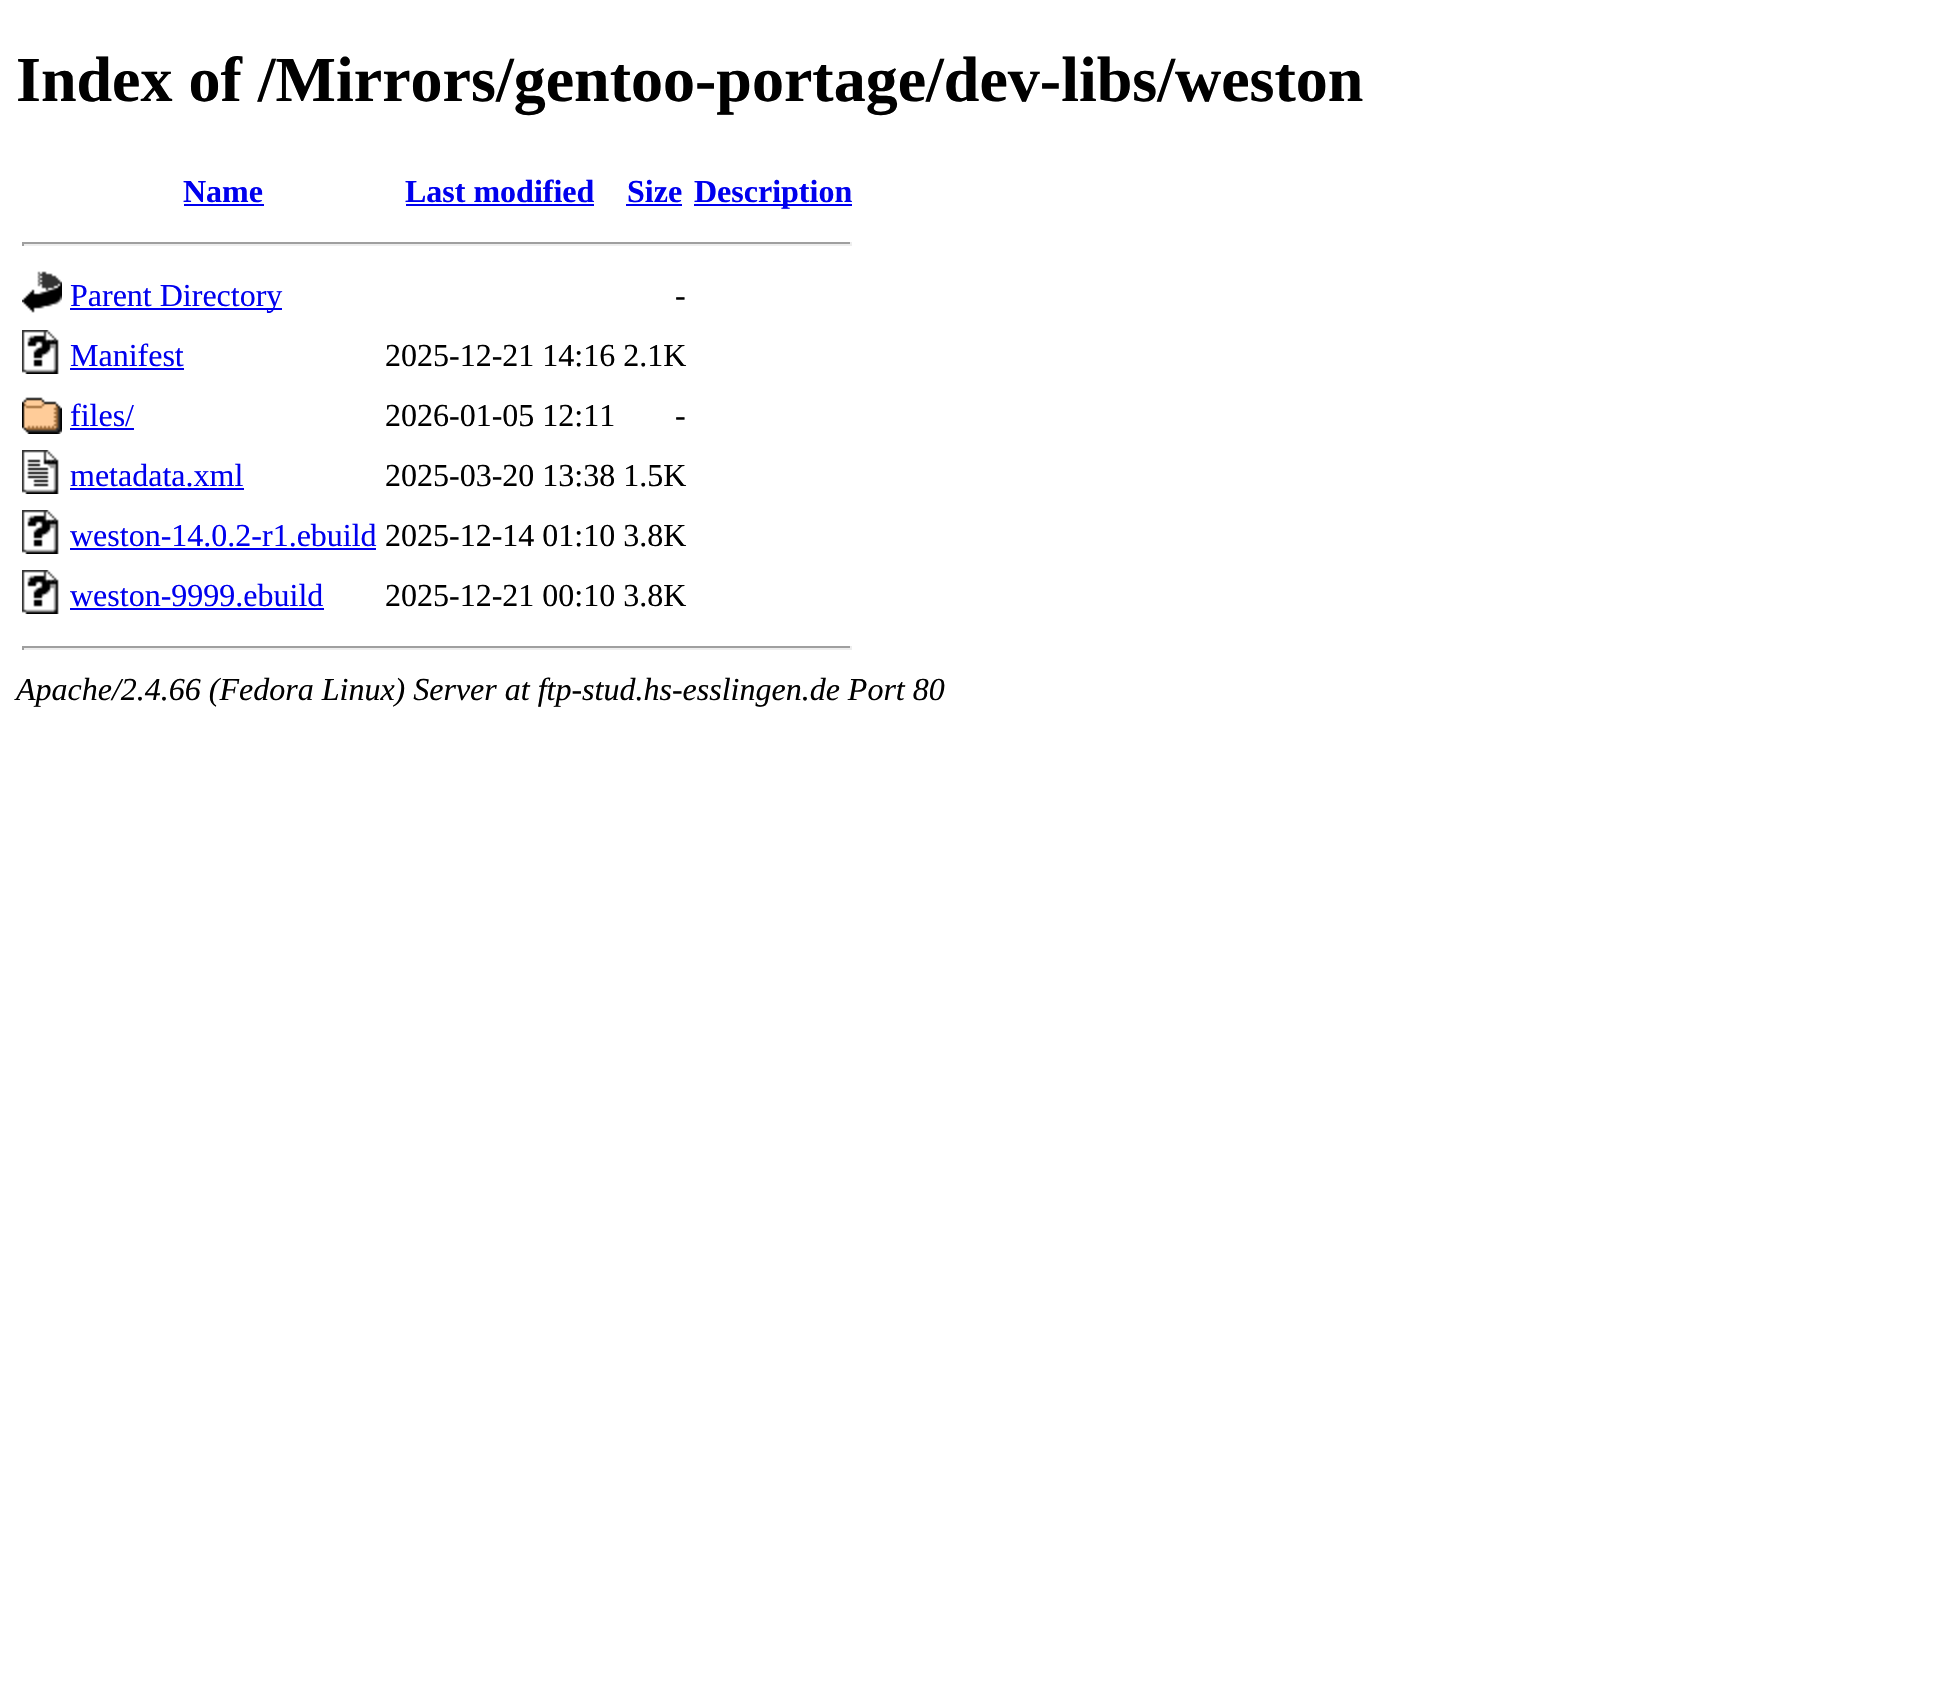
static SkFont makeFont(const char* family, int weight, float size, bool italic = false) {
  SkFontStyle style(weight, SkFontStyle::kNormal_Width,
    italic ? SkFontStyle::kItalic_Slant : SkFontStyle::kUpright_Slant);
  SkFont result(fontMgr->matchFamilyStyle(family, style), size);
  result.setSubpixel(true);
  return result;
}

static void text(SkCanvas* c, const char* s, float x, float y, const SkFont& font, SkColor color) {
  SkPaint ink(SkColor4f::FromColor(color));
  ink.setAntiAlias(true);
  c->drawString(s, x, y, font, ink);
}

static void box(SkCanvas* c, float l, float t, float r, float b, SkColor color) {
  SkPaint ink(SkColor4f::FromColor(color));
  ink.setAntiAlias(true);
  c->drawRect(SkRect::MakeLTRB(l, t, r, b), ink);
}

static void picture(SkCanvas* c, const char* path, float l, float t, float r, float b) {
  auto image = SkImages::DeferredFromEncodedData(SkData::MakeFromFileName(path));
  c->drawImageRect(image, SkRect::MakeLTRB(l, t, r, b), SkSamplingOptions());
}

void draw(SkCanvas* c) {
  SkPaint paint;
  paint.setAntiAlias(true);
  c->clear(0xffffffff);
  SkFont face1 = makeFont("Liberation Serif", 700, 64);
  text(c, "Index of /Mirrors/gentoo-portage/dev-libs/weston", 16, 101, face1, 0xff000000);
  SkFont face2 = makeFont("Liberation Serif", 700, 32);
  text(c, "Name", 183, 202, face2, 0xff0000ee);
  box(c, 184, 204, 264, 206, 0xff0000ee);
  text(c, "Last modified", 405, 202, face2, 0xff0000ee);
  box(c, 406, 204, 594, 206, 0xff0000ee);
  text(c, "Size", 627, 202, face2, 0xff0000ee);
  box(c, 626, 204, 682, 206, 0xff0000ee);
  box(c, 694, 204, 852, 206, 0xff0000ee);
  text(c, "Description", 694, 202, face2, 0xff0000ee);
  box(c, 22, 242, 852, 244, 0xff9f9f9f);
  box(c, 850, 242, 852, 246, 0xffeeeeee);
  box(c, 22, 244, 852, 246, 0xffeeeeee);
  box(c, 22, 242, 24, 246, 0xff9f9f9f);
  picture(c, "img_01.png", 22, 271, 62, 313);
  box(c, 70, 308, 282, 310, 0xff0000ee);
  SkFont face3 = makeFont("Liberation Serif", 400, 32);
  text(c, "Parent Directory", 70, 306, face3, 0xff0000ee);
  text(c, "-", 675, 306, face3, 0xff000000);
  picture(c, "img_02.png", 22, 330, 59, 374);
  text(c, "Manifest", 70, 366, face3, 0xff0000ee);
  box(c, 70, 368, 184, 370, 0xff0000ee);
  text(c, "2025-12-21 14:16 2.1K", 385, 366, face3, 0xff000000);
  picture(c, "img_03.png", 22, 397, 62, 434);
  text(c, "files/", 70, 426, face3, 0xff0000ee);
  box(c, 70, 428, 134, 430, 0xff0000ee);
  text(c, "2026-01-05 12:11", 385, 426, face3, 0xff000000);
  text(c, "-", 675, 426, face3, 0xff000000);
  picture(c, "img_04.png", 22, 450, 59, 494);
  text(c, "metadata.xml", 70, 486, face3, 0xff0000ee);
  box(c, 70, 488, 244, 490, 0xff0000ee);
  text(c, "2025-03-20 13:38 1.5K", 385, 486, face3, 0xff000000);
  picture(c, "img_02.png", 22, 510, 59, 554);
  text(c, "weston-14.0.2-r1.ebuild", 70, 546, face3, 0xff0000ee);
  box(c, 70, 548, 376, 550, 0xff0000ee);
  text(c, "2025-12-14 01:10 3.8K", 385, 546, face3, 0xff000000);
  picture(c, "img_02.png", 22, 570, 59, 614);
  text(c, "weston-9999.ebuild", 70, 606, face3, 0xff0000ee);
  box(c, 70, 608, 324, 610, 0xff0000ee);
  text(c, "2025-12-21 00:10 3.8K", 385, 606, face3, 0xff000000);
  box(c, 22, 646, 852, 648, 0xff9f9f9f);
  box(c, 850, 646, 852, 650, 0xffeeeeee);
  box(c, 22, 648, 852, 650, 0xffeeeeee);
  box(c, 22, 646, 24, 650, 0xff9f9f9f);
  SkFont face4 = makeFont("Liberation Serif", 400, 32, true);
  text(c, "Apache/2.4.66 (Fedora Linux) Server at ftp-stud.hs-esslingen.de Port 80", 16, 700, face4, 0xff000000);
}
